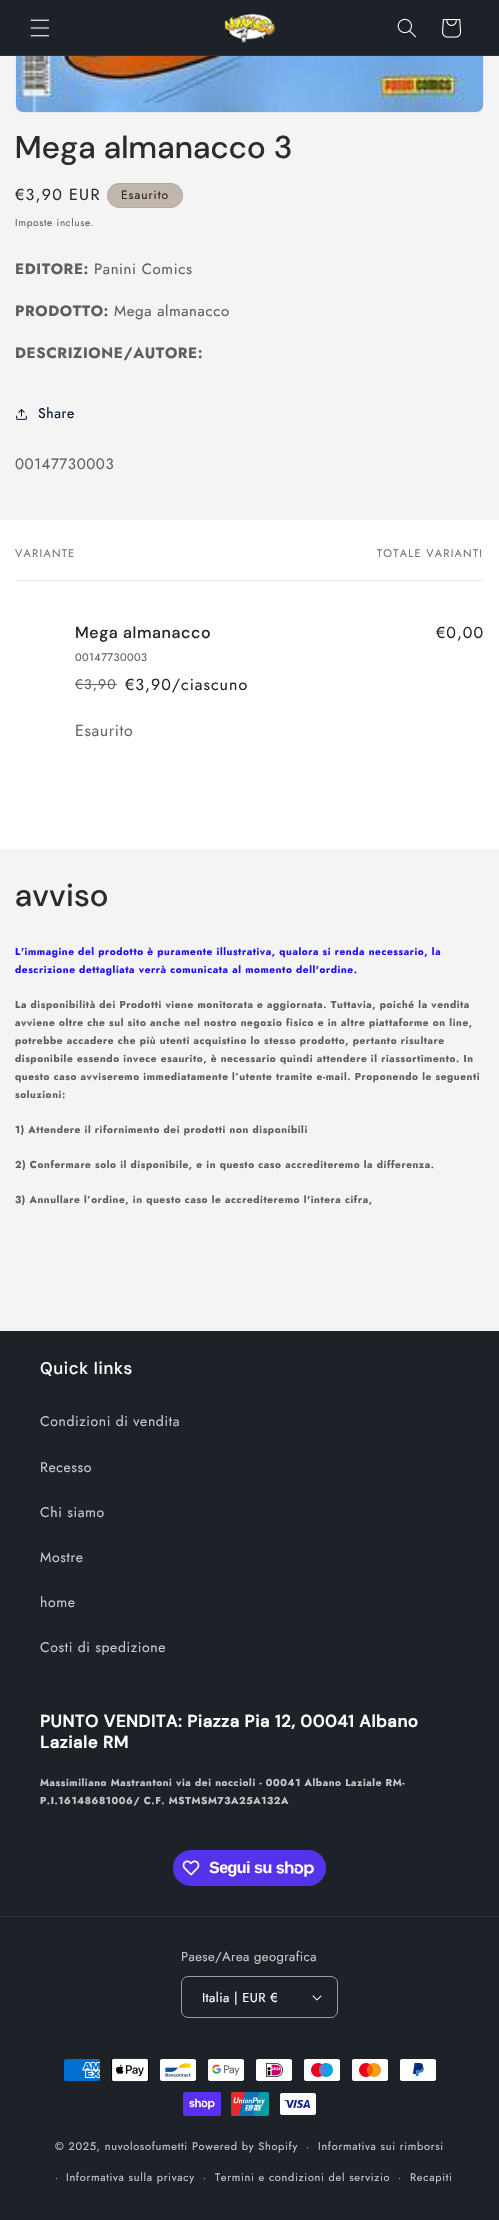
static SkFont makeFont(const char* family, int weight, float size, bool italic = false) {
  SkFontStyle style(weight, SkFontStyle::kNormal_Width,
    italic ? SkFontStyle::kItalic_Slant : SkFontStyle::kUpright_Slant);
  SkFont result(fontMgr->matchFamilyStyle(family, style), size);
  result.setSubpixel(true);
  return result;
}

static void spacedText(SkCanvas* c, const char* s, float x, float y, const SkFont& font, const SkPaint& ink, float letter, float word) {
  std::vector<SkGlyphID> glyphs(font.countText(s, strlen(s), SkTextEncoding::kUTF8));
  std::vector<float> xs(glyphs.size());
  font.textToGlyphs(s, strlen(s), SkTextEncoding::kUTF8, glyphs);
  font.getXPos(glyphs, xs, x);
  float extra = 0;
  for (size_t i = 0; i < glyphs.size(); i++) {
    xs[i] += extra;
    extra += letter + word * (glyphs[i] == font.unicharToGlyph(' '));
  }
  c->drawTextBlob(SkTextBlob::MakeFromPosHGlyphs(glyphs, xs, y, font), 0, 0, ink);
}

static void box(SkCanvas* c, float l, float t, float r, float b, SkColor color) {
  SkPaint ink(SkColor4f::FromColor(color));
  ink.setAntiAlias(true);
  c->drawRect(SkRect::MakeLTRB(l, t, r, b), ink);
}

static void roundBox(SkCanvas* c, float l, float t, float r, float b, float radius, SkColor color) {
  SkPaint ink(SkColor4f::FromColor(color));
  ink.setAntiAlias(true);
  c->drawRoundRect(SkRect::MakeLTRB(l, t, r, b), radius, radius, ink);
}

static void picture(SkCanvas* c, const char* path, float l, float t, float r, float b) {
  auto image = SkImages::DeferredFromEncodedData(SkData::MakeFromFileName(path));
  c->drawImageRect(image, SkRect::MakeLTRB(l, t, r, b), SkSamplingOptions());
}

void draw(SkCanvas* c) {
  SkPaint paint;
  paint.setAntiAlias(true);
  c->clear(0xfff4f4f4);
  paint.setStyle(SkPaint::kStroke_Style);
  paint.setStrokeWidth(1);
  paint.setColor(0xffeaeaea);
  c->drawRoundRect(SkRect::MakeLTRB(15.5f, -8.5f, 483.5f, 112.5f), 7.5f, 7.5f, paint);
  box(c, 0, 0, 499, 55, 0xff1c2228);
  box(c, 0, 55, 499, 56, 0xff2e3439);
  picture(c, "img_01.png", 30, 19, 50, 37);
  picture(c, "img_02.png", 224, 13, 276, 43);
  picture(c, "img_03.png", 397, 18, 416, 38);
  picture(c, "img_04.png", 442, 19, 462, 38);
  picture(c, "img_05.png", 16, 56, 483, 112);
  SkFont face1 = makeFont("DM Sans", 500, 31.5f);
  paint.setStyle(SkPaint::kFill_Style);
  paint.setColor(0xff2b2c2d);
  spacedText(c, "Mega almanacco 3", 15, 158, face1, paint, 0.65f, 0);
  SkFont face2 = makeFont("Jost", 400, 16);
  spacedText(c, "€3,90 EUR", 15, 200, face2, paint, 1.25f, 0);
  roundBox(c, 107, 183, 183, 208, 12.5f, 0xffc2b7ac);
  paint.setStyle(SkPaint::kStroke_Style);
  paint.setColor(0x1a262626);
  c->drawRoundRect(SkRect::MakeLTRB(107.5f, 183.5f, 182.5f, 207.5f), 12, 12, paint);
  SkFont face3 = makeFont("Jost", 400, 12);
  paint.setStyle(SkPaint::kFill_Style);
  paint.setColor(0xff262626);
  spacedText(c, "Esaurito", 121, 199, face3, paint, 1, 0);
  SkFont face4 = makeFont("Jost", 400, 10);
  paint.setColor(0xff5d5e5f);
  spacedText(c, "Imposte incluse.", 15, 226, face4, paint, 0.7f, 0);
  SkFont face5 = makeFont("Jost", 700, 15);
  spacedText(c, "EDITORE:", 15, 274, face5, paint, 0.6f, 0);
  SkFont face6 = makeFont("Jost", 400, 15);
  spacedText(c, "Panini Comics", 94, 274, face6, paint, 0.6f, 0);
  spacedText(c, "PRODOTTO:", 15, 316, face5, paint, 0.6f, 0);
  spacedText(c, "Mega almanacco", 114, 316, face6, paint, 0.6f, 0);
  spacedText(c, "DESCRIZIONE/AUTORE:", 15, 358, face5, paint, 0.6f, 0);
  picture(c, "img_06.png", 16, 409, 27, 420);
  SkFont face7 = makeFont("Jost", 400, 14);
  paint.setColor(0xff001128);
  spacedText(c, "Share", 38, 418, face7, paint, 0.6f, 0);
  paint.setColor(0xff5d5e5f);
  spacedText(c, "00147730003", 15, 469, face6, paint, 0.6f, 0);
  box(c, 0, 520, 499, 849, 0xffffffff);
  box(c, 15, 580, 484, 581, 0xffeeeeee);
  SkFont face8 = makeFont("Jost", 400, 11);
  paint.setColor(0xff757575);
  spacedText(c, "VARIANTE", 15, 557, face8, paint, 1.25f, 0);
  spacedText(c, "TOTALE VARIANTI", 377, 557, face8, paint, 1.25f, 0);
  SkFont face9 = makeFont("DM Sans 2", 500, 16);
  paint.setColor(0xff262626);
  spacedText(c, "Mega almanacco", 75, 638, face9, paint, 0.6f, 0);
  paint.setColor(0xff5d5e5f);
  spacedText(c, "00147730003", 75, 661, face8, paint, 0.4f, 0);
  paint.setColor(0xff676767);
  spacedText(c, "€3,90", 75, 689, face7, paint, 1, 0);
  box(c, 75, 684, 117, 685, 0xff676767);
  paint.setColor(0xff262626);
  spacedText(c, "€3,90/ciascuno", 125, 690, face2, paint, 1, 0);
  spacedText(c, "€0,00", 436, 638, face2, paint, 1, 0);
  paint.setColor(0xff676767);
  spacedText(c, "Esaurito", 75, 736, face2, paint, 0.6f, 0);
  paint.setColor(0xff2b2c2d);
  spacedText(c, "avviso", 15, 906, face1, paint, 0.65f, 0);
  SkFont face10 = makeFont("Jost", 700, 10.05f);
  paint.setColor(0xff210ff7);
  spacedText(c, "L'immagine del prodotto è puramente illustrativa, qualora si renda necessario, la", 15, 955, face10, paint, 0.6f, 0);
  spacedText(c, "descrizione dettagliata verrà comunicata al momento dell'ordine.", 15, 973, face10, paint, 0.6f, 0);
  paint.setColor(0xff5d5e5f);
  spacedText(c, "La disponibilità dei Prodotti viene monitorata e aggiornata. Tuttavia, poiché la vendita", 15, 1008, face10, paint, 0.6f, 0);
  spacedText(c, "avviene oltre che sul sito anche nel nostro negozio fisico e in altre piattaforme on line,", 15, 1026, face10, paint, 0.6f, 0);
  spacedText(c, "potrebbe accadere che più utenti acquistino lo stesso prodotto, pertanto risultare", 15, 1044, face10, paint, 0.6f, 0);
  spacedText(c, "disponibile essendo invece esaurito, è necessario quindi attendere il riassortimento. In", 15, 1062, face10, paint, 0.6f, 0);
  spacedText(c, "questo caso avviseremo immediatamente l’utente tramite e-mail. Proponendo le seguenti", 15, 1080, face10, paint, 0.6f, 0);
  spacedText(c, "soluzioni:", 15, 1098, face10, paint, 0.6f, 0);
  spacedText(c, "1) Attendere il rifornimento dei prodotti non disponibili", 15, 1133, face10, paint, 0.6f, 0);
  spacedText(c, "2) Confermare solo il disponibile, e in questo caso accrediteremo la differenza.", 15, 1168, face10, paint, 0.6f, 0);
  spacedText(c, "3) Annullare l’ordine, in questo caso le accrediteremo l'intera cifra,", 15, 1203, face10, paint, 0.6f, 0);
  box(c, 0, 1331, 499, 2220, 0xff1c2228);
  SkFont face11 = makeFont("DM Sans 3", 500, 16.8f);
  paint.setColor(0xffffffff);
  spacedText(c, "Quick links", 40, 1374, face11, paint, 0.65f, 0);
  paint.setColor(0xffc6c8c9);
  spacedText(c, "Condizioni di vendita", 40, 1426, face7, paint, 0.6f, 0);
  spacedText(c, "Recesso", 40, 1472, face7, paint, 0.6f, 0);
  spacedText(c, "Chi siamo", 40, 1517, face7, paint, 0.6f, 0);
  spacedText(c, "Mostre", 40, 1562, face7, paint, 0.6f, 0);
  spacedText(c, "home", 40, 1607, face7, paint, 0.6f, 0);
  spacedText(c, "Costi di spedizione", 40, 1652, face7, paint, 0.6f, 0);
  SkFont face12 = makeFont("DM Sans", 700, 16.8f);
  paint.setColor(0xffffffff);
  spacedText(c, "PUNTO VENDITA: Piazza Pia 12, 00041 Albano", 40, 1727, face12, paint, 0.65f, 0);
  spacedText(c, "Laziale RM", 40, 1748, face12, paint, 0.65f, 0);
  paint.setColor(0xffc6c8c9);
  spacedText(c, "Massimiliano Mastrantoni via dei noccioli - 00041 Albano Laziale RM-", 40, 1786, face10, paint, 0.6f, 0);
  spacedText(c, "P.I.16148681006/ C.F. MSTMSM73A25A132A", 40, 1804, face10, paint, 0.6f, 0);
  roundBox(c, 173, 1850, 326, 1886, 18, 0xff5433eb);
  picture(c, "img_07.png", 182, 1860, 200, 1876);
  SkFont face13 = makeFont("Liberation Sans", 700, 16);
  paint.setColor(0xffffffff);
  spacedText(c, "Segui su", 209, 1873, face13, paint, -0.5f, 0);
  picture(c, "img_08.png", 276, 1861, 314, 1877);
  box(c, 0, 1916, 499, 1917, 0xff2e3439);
  SkFont face14 = makeFont("Jost", 400, 13);
  paint.setColor(0xffc6c8c9);
  spacedText(c, "Paese/Area geografica", 181, 1961, face14, paint, 0.4f, 0);
  picture(c, "img_09.png", 312, 1995, 322, 2001);
  paint.setStyle(SkPaint::kStroke_Style);
  paint.setColor(0xff999c9e);
  c->drawRoundRect(SkRect::MakeLTRB(181.5f, 1976.5f, 337.5f, 2017.5f), 6.5f, 6.5f, paint);
  paint.setStyle(SkPaint::kFill_Style);
  paint.setColor(0xffffffff);
  spacedText(c, "Italia | EUR €", 202, 2002, face14, paint, 0.4f, 0);
  picture(c, "img_10.png", 64, 2059, 100, 2081);
  picture(c, "img_11.png", 111, 2058, 149, 2082);
  picture(c, "img_12.png", 160, 2059, 196, 2081);
  picture(c, "img_13.png", 208, 2059, 244, 2081);
  picture(c, "img_14.png", 256, 2059, 292, 2081);
  picture(c, "img_15.png", 304, 2059, 340, 2081);
  picture(c, "img_16.png", 352, 2059, 388, 2081);
  picture(c, "img_17.png", 400, 2059, 436, 2081);
  picture(c, "img_18.png", 183, 2092, 221, 2116);
  picture(c, "img_19.png", 231, 2092, 269, 2116);
  picture(c, "img_20.png", 280, 2093, 316, 2115);
  paint.setColor(0xffc6c8c9);
  spacedText(c, "© 2025, nuvolosofumetti Powered by Shopify", 55, 2150, face8, paint, 0.7f, 0);
  spacedText(c, "·", 306, 2150, face4, paint, 0.7f, 0);
  spacedText(c, "Informativa sui rimborsi", 318, 2150, face8, paint, 0.7f, 0);
  spacedText(c, "·", 55, 2181, face4, paint, 0.7f, 0);
  spacedText(c, "Informativa sulla privacy", 66, 2181, face8, paint, 0.7f, 0);
  spacedText(c, "·", 203, 2181, face4, paint, 0.7f, 0);
  spacedText(c, "Termini e condizioni del servizio", 215, 2181, face8, paint, 0.7f, 0);
  spacedText(c, "·", 398, 2181, face4, paint, 0.7f, 0);
  spacedText(c, "Recapiti", 410, 2181, face8, paint, 0.7f, 0);
}
